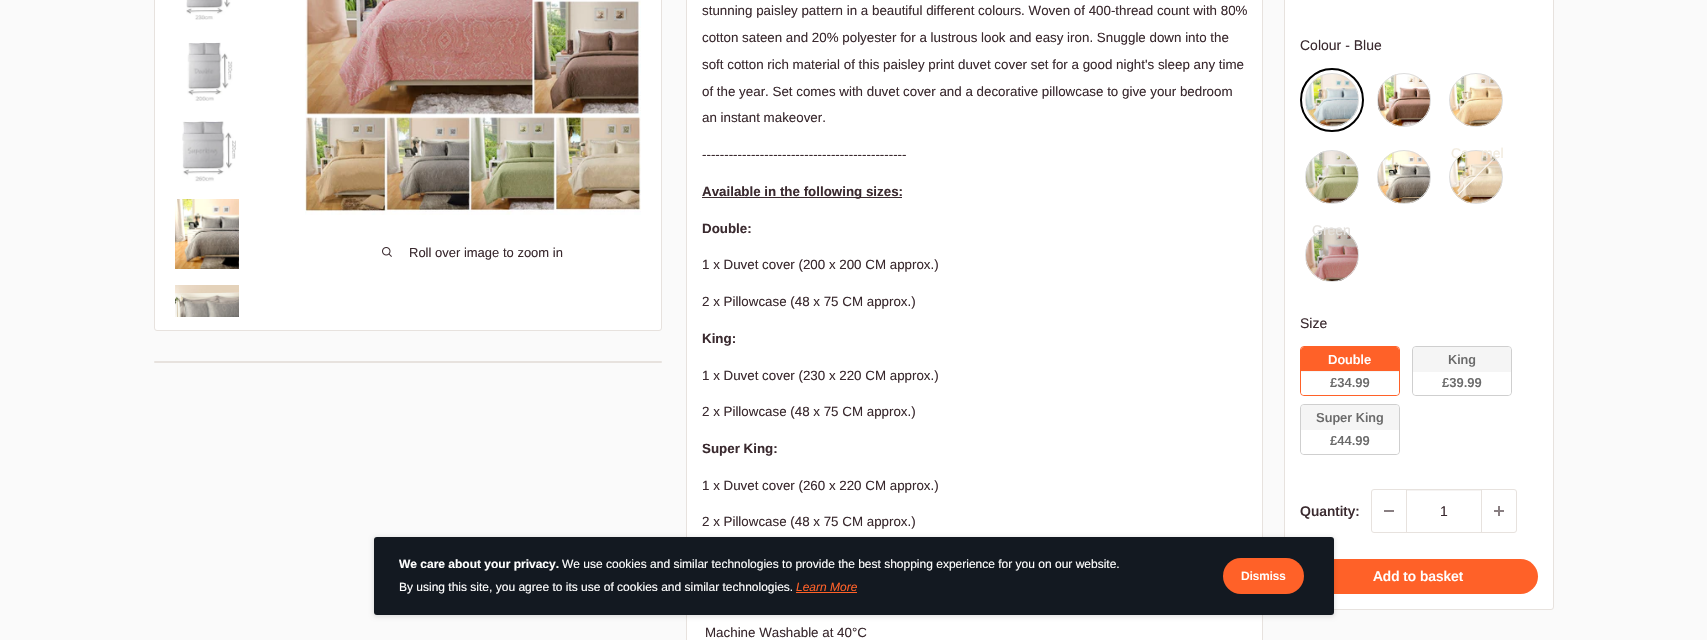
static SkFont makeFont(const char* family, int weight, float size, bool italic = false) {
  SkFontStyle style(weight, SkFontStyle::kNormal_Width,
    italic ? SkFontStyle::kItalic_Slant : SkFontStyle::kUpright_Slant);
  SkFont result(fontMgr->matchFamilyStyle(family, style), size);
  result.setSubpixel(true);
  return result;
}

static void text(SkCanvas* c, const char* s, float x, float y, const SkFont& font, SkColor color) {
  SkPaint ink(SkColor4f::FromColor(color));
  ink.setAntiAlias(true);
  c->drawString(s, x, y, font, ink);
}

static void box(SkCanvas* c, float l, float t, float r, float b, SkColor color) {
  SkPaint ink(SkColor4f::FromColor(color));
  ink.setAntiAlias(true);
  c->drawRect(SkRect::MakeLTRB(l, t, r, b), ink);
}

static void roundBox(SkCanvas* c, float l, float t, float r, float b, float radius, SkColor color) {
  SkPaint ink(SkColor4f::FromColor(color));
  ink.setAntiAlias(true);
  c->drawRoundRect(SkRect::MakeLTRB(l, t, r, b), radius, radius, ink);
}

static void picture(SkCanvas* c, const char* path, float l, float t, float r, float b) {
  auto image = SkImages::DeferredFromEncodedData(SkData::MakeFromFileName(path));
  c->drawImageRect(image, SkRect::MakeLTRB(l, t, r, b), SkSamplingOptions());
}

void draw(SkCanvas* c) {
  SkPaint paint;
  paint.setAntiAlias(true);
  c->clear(0xfffafafa);
  paint.setColor(0xffffffff);
  c->drawRoundRect(SkRect::MakeLTRB(154.5f, -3.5f, 661.5f, 330.5f), 2.5f, 2.5f, paint);
  paint.setStyle(SkPaint::kStroke_Style);
  paint.setStrokeWidth(1);
  paint.setColor(0xffe7e2de);
  c->drawRoundRect(SkRect::MakeLTRB(154.5f, -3.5f, 661.5f, 330.5f), 2.5f, 2.5f, paint);
  picture(c, "img_01.png", 186, 0, 231, 20);
  picture(c, "img_02.png", 187, 42, 233, 101);
  picture(c, "img_03.png", 182, 121, 236, 182);
  picture(c, "img_04.png", 175, 199, 239, 269);
  picture(c, "img_05.png", 175, 285, 239, 317);
  picture(c, "img_06.png", 305, 0, 641, 215);
  picture(c, "img_07.png", 382, 247, 392, 257);
  SkFont face1 = makeFont("Arimo", 400, 13);
  text(c, "Roll over image to zoom in", 409, 257, face1, 0xff3a2a2f);
  paint.setStyle(SkPaint::kFill_Style);
  paint.setColor(0xffffffff);
  c->drawRect(SkRect::MakeLTRB(686.5f, -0.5f, 1262.5f, 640.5f), paint);
  paint.setStyle(SkPaint::kStroke_Style);
  paint.setColor(0xffe7e2de);
  c->drawRect(SkRect::MakeLTRB(686.5f, -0.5f, 1262.5f, 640.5f), paint);
  SkFont face2 = makeFont("Liberation Sans", 400, 13.35f);
  text(c, "stunning paisley pattern in a beautiful different colours. Woven of 400-thread count with 80%", 702, 15, face2, 0xff3a2a2f);
  text(c, "cotton sateen and 20% polyester for a lustrous look and easy iron. Snuggle down into the", 702, 42, face2, 0xff3a2a2f);
  text(c, "soft cotton rich material of this paisley print duvet cover set for a good night's sleep any time", 702, 69, face2, 0xff3a2a2f);
  text(c, "of the year. Set comes with duvet cover and a decorative pillowcase to give your bedroom", 702, 96, face2, 0xff3a2a2f);
  text(c, "an instant makeover.", 702, 122, face2, 0xff3a2a2f);
  text(c, "----------------------------------------------", 702, 159, face2, 0xff3a2a2f);
  box(c, 702, 197, 902, 198, 0xff3a2a2f);
  SkFont face3 = makeFont("Liberation Sans", 700, 13.35f);
  text(c, "Available in the following sizes:", 702, 196, face3, 0xff3a2a2f);
  text(c, "Double:", 702, 233, face3, 0xff3a2a2f);
  text(c, "1 x Duvet cover (200 x 200 CM approx.)", 702, 269, face2, 0xff3a2a2f);
  text(c, "2 x Pillowcase (48 x 75 CM approx.)", 702, 306, face2, 0xff3a2a2f);
  text(c, "King:", 702, 343, face3, 0xff3a2a2f);
  text(c, "1 x Duvet cover (230 x 220 CM approx.)", 702, 380, face2, 0xff3a2a2f);
  text(c, "2 x Pillowcase (48 x 75 CM approx.)", 702, 416, face2, 0xff3a2a2f);
  text(c, "Super King:", 702, 453, face3, 0xff3a2a2f);
  text(c, "1 x Duvet cover (260 x 220 CM approx.)", 702, 490, face2, 0xff3a2a2f);
  text(c, "2 x Pillowcase (48 x 75 CM approx.)", 702, 526, face2, 0xff3a2a2f);
  text(c, "Machine Washable at 40°C", 705, 637, face2, 0xff3a2a2f);
  paint.setStyle(SkPaint::kFill_Style);
  paint.setColor(0xffffffff);
  c->drawRoundRect(SkRect::MakeLTRB(1284.5f, -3.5f, 1553.5f, 609.5f), 2.5f, 2.5f, paint);
  paint.setStyle(SkPaint::kStroke_Style);
  paint.setColor(0xffe7e2de);
  c->drawRoundRect(SkRect::MakeLTRB(1284.5f, -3.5f, 1553.5f, 609.5f), 2.5f, 2.5f, paint);
  SkFont face4 = makeFont("Arimo", 400, 14);
  text(c, "Colour - Blue", 1300, 50, face4, 0xff3a2a2f);
  paint.setStrokeWidth(2);
  paint.setColor(0xff000000);
  c->drawCircle(1332, 100, 31, paint);
  picture(c, "img_08.png", 1306, 74, 1358, 126);
  paint.setStrokeWidth(1);
  paint.setColor(0xffdddddd);
  c->drawCircle(1332, 100, 26.5f, paint);
  picture(c, "img_09.png", 1378, 74, 1430, 126);
  c->drawCircle(1404, 100, 26.5f, paint);
  picture(c, "img_10.png", 1378, 151, 1430, 203);
  c->drawCircle(1404, 177, 26.5f, paint);
  picture(c, "img_11.png", 1450, 74, 1502, 126);
  c->drawCircle(1476, 100, 26.5f, paint);
  picture(c, "img_12.png", 1450, 151, 1502, 203);
  c->drawCircle(1476, 177, 26.5f, paint);
  paint.setStyle(SkPaint::kFill_Style);
  paint.setColor(0xffffffff);
  c->drawPath(SkPathBuilder().moveTo(1493.5f, 158.5f).lineTo(1494, 159).lineTo(1458, 195.5f).lineTo(1457, 195).close().detach(), paint);
  text(c, "Ca", 1451, 158, face4, 0xfff2ebde);
  text(c, "mel", 1481, 158, face4, 0xfff2ebde);
  picture(c, "img_13.png", 1306, 151, 1358, 203);
  paint.setStyle(SkPaint::kStroke_Style);
  paint.setColor(0xffdddddd);
  c->drawCircle(1332, 177, 26.5f, paint);
  picture(c, "img_14.png", 1306, 229, 1358, 281);
  c->drawCircle(1332, 255, 26.5f, paint);
  text(c, "Green", 1312, 235, face4, 0xffe4e1dd);
  text(c, "Size", 1300, 328, face4, 0xff3a2a2f);
  paint.setColor(0xffff6128);
  c->drawRoundRect(SkRect::MakeLTRB(1300.5f, 346.5f, 1399.5f, 395.5f), 3.5f, 3.5f, paint);
  paint.setStyle(SkPaint::kFill_Style);
  c->drawPath(SkPathBuilder().moveTo(1304, 347).lineTo(1396, 347).cubicTo(1397.5f, 347, 1399, 348.5f, 1399, 350).lineTo(1399, 372).lineTo(1301, 372).lineTo(1301, 350).cubicTo(1301, 348.5f, 1302.5f, 347, 1304, 347).close().detach(), paint);
  box(c, 1301, 371, 1399, 372, 0xfff5f5f5);
  SkFont face5 = makeFont("Arimo", 600, 13);
  text(c, "Double", 1328, 364, face5, 0xffffffff);
  paint.setColor(0xffffffff);
  c->drawPath(SkPathBuilder().moveTo(1301, 372).lineTo(1399, 372).lineTo(1399, 392).cubicTo(1399, 393.5f, 1397.5f, 395, 1396, 395).lineTo(1304, 395).cubicTo(1302.5f, 395, 1301, 393.5f, 1301, 392).close().detach(), paint);
  text(c, "£34.99", 1330, 387, face5, 0xff6a6a6a);
  paint.setStyle(SkPaint::kStroke_Style);
  paint.setColor(0xffcfcfcf);
  c->drawRoundRect(SkRect::MakeLTRB(1412.5f, 346.5f, 1511.5f, 395.5f), 3.5f, 3.5f, paint);
  paint.setStyle(SkPaint::kFill_Style);
  paint.setColor(0xfff5f5f5);
  c->drawPath(SkPathBuilder().moveTo(1416, 347).lineTo(1508, 347).cubicTo(1509.5f, 347, 1511, 348.5f, 1511, 350).lineTo(1511, 372).lineTo(1413, 372).lineTo(1413, 350).cubicTo(1413, 348.5f, 1414.5f, 347, 1416, 347).close().detach(), paint);
  text(c, "King", 1448, 364, face5, 0xff6a6a6a);
  paint.setColor(0xffffffff);
  c->drawPath(SkPathBuilder().moveTo(1413, 372).lineTo(1511, 372).lineTo(1511, 392).cubicTo(1511, 393.5f, 1509.5f, 395, 1508, 395).lineTo(1416, 395).cubicTo(1414.5f, 395, 1413, 393.5f, 1413, 392).close().detach(), paint);
  text(c, "£39.99", 1442, 387, face5, 0xff6a6a6a);
  paint.setStyle(SkPaint::kStroke_Style);
  paint.setColor(0xffcfcfcf);
  c->drawRoundRect(SkRect::MakeLTRB(1300.5f, 404.5f, 1399.5f, 454.5f), 3.5f, 3.5f, paint);
  paint.setStyle(SkPaint::kFill_Style);
  paint.setColor(0xfff5f5f5);
  c->drawPath(SkPathBuilder().moveTo(1304, 405).lineTo(1396, 405).cubicTo(1397.5f, 405, 1399, 406.5f, 1399, 408).lineTo(1399, 430).lineTo(1301, 430).lineTo(1301, 408).cubicTo(1301, 406.5f, 1302.5f, 405, 1304, 405).close().detach(), paint);
  text(c, "Super King", 1316, 422, face5, 0xff6a6a6a);
  paint.setColor(0xffffffff);
  c->drawPath(SkPathBuilder().moveTo(1301, 430).lineTo(1399, 430).lineTo(1399, 451).cubicTo(1399, 452.5f, 1397.5f, 454, 1396, 454).lineTo(1304, 454).cubicTo(1302.5f, 454, 1301, 452.5f, 1301, 451).close().detach(), paint);
  text(c, "£44.99", 1330, 445, face5, 0xff6a6a6a);
  SkFont face6 = makeFont("Arimo", 600, 14);
  text(c, "Quantity:", 1300, 516, face6, 0xff3a2a2f);
  paint.setStyle(SkPaint::kStroke_Style);
  paint.setColor(0xffe7e2de);
  c->drawRoundRect(SkRect::MakeLTRB(1371.5f, 489.5f, 1516.5f, 532.5f), 2.5f, 2.5f, paint);
  box(c, 1384, 510, 1394, 512, 0xff897f82);
  box(c, 1407, 490, 1481, 491, 0xfff5f3f2);
  box(c, 1481, 490, 1482, 532, 0xffe7e2de);
  box(c, 1406, 490, 1407, 532, 0xffe7e2de);
  text(c, "1", 1440, 516, face4, 0xff3a2a2f);
  picture(c, "img_15.png", 1494, 506, 1504, 516);
  roundBox(c, 1300, 559, 1538, 594, 17.5f, 0xffff6128);
  text(c, "Add to basket", 1373, 581, face6, 0xffffffff);
  roundBox(c, 154, 361, 662, 363, 1, 0xffe7e2de);
  paint.setStyle(SkPaint::kFill_Style);
  paint.setColor(0x1a000000);
  paint.setMaskFilter(SkMaskFilter::MakeBlur(kNormal_SkBlurStyle, 2));
  c->drawRoundRect(SkRect::MakeLTRB(373, 537, 1335, 617), 4, 4, paint);
  paint.setMaskFilter(nullptr);
  roundBox(c, 374, 537, 1334, 615, 3, 0xff131921);
  SkFont face7 = makeFont("Arimo", 700, 12);
  text(c, "We care about your privacy.", 399, 568, face7, 0xffffffff);
  SkFont face8 = makeFont("Arimo", 400, 12);
  text(c, "We use cookies and similar technologies to provide the best shopping experience for you on our website.", 562, 568, face8, 0xffffffff);
  text(c, "By using this site, you agree to its use of cookies and similar technologies.", 399, 591, face8, 0xffffffff);
  SkFont face9 = makeFont("Arimo", 400, 12, true);
  text(c, "Learn More", 796, 591, face9, 0xffff6128);
  box(c, 796, 592, 857, 593, 0xffff6128);
  roundBox(c, 1223, 558, 1304, 594, 18, 0xffff6128);
  SkFont face10 = makeFont("Arimo", 600, 12);
  text(c, "Dismiss", 1241, 580, face10, 0xffffffff);
}
